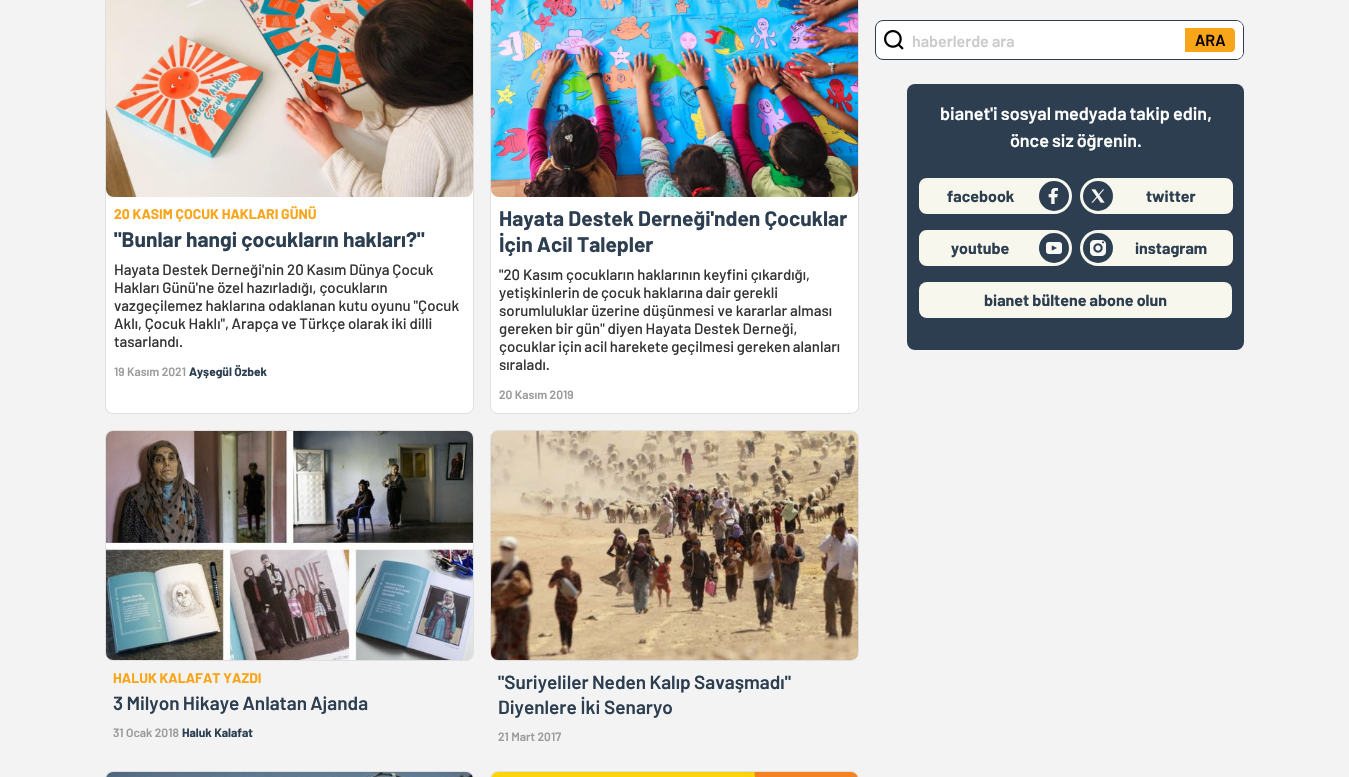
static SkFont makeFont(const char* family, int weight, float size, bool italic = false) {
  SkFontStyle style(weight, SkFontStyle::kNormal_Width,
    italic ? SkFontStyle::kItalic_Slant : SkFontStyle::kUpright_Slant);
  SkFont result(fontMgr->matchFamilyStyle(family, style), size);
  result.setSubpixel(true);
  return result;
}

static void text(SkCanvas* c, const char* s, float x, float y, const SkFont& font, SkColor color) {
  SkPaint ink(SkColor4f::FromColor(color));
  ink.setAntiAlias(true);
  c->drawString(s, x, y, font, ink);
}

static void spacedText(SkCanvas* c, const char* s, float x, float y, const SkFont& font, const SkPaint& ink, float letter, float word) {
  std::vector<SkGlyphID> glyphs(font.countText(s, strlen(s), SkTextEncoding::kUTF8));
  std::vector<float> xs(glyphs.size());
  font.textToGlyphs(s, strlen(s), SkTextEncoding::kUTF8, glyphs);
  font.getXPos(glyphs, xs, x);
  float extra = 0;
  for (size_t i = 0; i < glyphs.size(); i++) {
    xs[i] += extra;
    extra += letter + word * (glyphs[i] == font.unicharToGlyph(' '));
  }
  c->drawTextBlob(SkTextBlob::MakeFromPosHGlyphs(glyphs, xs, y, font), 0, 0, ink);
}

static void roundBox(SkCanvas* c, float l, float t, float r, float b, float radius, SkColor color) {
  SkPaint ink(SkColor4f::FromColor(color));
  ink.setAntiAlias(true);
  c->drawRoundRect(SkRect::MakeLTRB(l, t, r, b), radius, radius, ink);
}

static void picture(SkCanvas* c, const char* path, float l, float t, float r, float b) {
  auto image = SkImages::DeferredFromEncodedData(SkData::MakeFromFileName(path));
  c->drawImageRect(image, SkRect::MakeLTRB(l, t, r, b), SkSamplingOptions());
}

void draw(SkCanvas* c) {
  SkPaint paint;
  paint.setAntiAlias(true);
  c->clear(0xfff3f3f3);
  paint.setColor(0xffffffff);
  c->drawRoundRect(SkRect::MakeLTRB(875.5f, 20.5f, 1243.5f, 59.5f), 7.5f, 7.5f, paint);
  paint.setStyle(SkPaint::kStroke_Style);
  paint.setStrokeWidth(1);
  paint.setColor(0xff2c3e50);
  c->drawRoundRect(SkRect::MakeLTRB(875.5f, 20.5f, 1243.5f, 59.5f), 7.5f, 7.5f, paint);
  picture(c, "img_01.png", 884, 30, 904, 50);
  paint.setStyle(SkPaint::kFill_Style);
  paint.setColor(0xffffffff);
  c->drawPath(SkPathBuilder().moveTo(908, 21).lineTo(1236, 21).cubicTo(1240, 21, 1243, 24, 1243, 28).lineTo(1243, 52).cubicTo(1243, 56, 1240, 59, 1236, 59).lineTo(908, 59).close().detach(), paint);
  SkFont face1 = makeFont("Barlow", 600, 16);
  text(c, "haberlerde ara", 912, 47, face1, 0xffcccccc);
  paint.setColor(0xfff9a51a);
  c->drawPath(SkPathBuilder().moveTo(1185, 28).lineTo(1231, 28).cubicTo(1233, 28, 1235, 30, 1235, 32).lineTo(1235, 48).cubicTo(1235, 50, 1233, 52, 1231, 52).lineTo(1185, 52).close().detach(), paint);
  text(c, "ARA", 1195, 46, face1, 0xff070401);
  roundBox(c, 907, 84, 1244, 350, 8, 0xff2c3e50);
  SkFont face2 = makeFont("Barlow", 600, 18);
  paint.setColor(0xffffffff);
  spacedText(c, "bianet'i sosyal medyada takip edin,", 940, 120, face2, paint, 0, -0.5f);
  spacedText(c, "önce siz öğrenin.", 1010, 147, face2, paint, 0, -0.5f);
  paint.setColor(0xfff7f7ed);
  c->drawPath(SkPathBuilder().moveTo(927, 178).lineTo(1054, 178).cubicTo(1064, 178, 1072, 186, 1072, 196).cubicTo(1072, 206, 1064, 214, 1054, 214).lineTo(927, 214).cubicTo(922.5f, 214, 919, 210.5f, 919, 206).lineTo(919, 186).cubicTo(919, 181.5f, 922.5f, 178, 927, 178).close().detach(), paint);
  SkFont face3 = makeFont("Barlow", 700, 16);
  text(c, "facebook", 947, 202, face3, 0xff2c3e50);
  paint.setColor(0xff2c3e50);
  c->drawCircle(1054, 196, 15, paint);
  picture(c, "img_02.png", 1048, 188, 1058, 204);
  paint.setColor(0xfff7f7ed);
  c->drawPath(SkPathBuilder().moveTo(1098, 178).lineTo(1225, 178).cubicTo(1229.5f, 178, 1233, 181.5f, 1233, 186).lineTo(1233, 206).cubicTo(1233, 210.5f, 1229.5f, 214, 1225, 214).lineTo(1098, 214).cubicTo(1088, 214, 1080, 206, 1080, 196).cubicTo(1080, 186, 1088, 178, 1098, 178).close().detach(), paint);
  paint.setColor(0xff2c3e50);
  c->drawCircle(1098, 196, 15, paint);
  picture(c, "img_03.png", 1091, 189, 1105, 203);
  text(c, "twitter", 1146, 202, face3, 0xff2c3e50);
  paint.setColor(0xfff7f7ed);
  c->drawPath(SkPathBuilder().moveTo(927, 230).lineTo(1054, 230).cubicTo(1064, 230, 1072, 238, 1072, 248).cubicTo(1072, 258, 1064, 266, 1054, 266).lineTo(927, 266).cubicTo(922.5f, 266, 919, 262.5f, 919, 258).lineTo(919, 238).cubicTo(919, 233.5f, 922.5f, 230, 927, 230).close().detach(), paint);
  text(c, "youtube", 951, 254, face3, 0xff2c3e50);
  paint.setColor(0xff2c3e50);
  c->drawCircle(1054, 248, 15, paint);
  picture(c, "img_04.png", 1046, 242, 1062, 254);
  paint.setColor(0xfff7f7ed);
  c->drawPath(SkPathBuilder().moveTo(1098, 230).lineTo(1225, 230).cubicTo(1229.5f, 230, 1233, 233.5f, 1233, 238).lineTo(1233, 258).cubicTo(1233, 262.5f, 1229.5f, 266, 1225, 266).lineTo(1098, 266).cubicTo(1088, 266, 1080, 258, 1080, 248).cubicTo(1080, 238, 1088, 230, 1098, 230).close().detach(), paint);
  paint.setColor(0xff2c3e50);
  c->drawCircle(1098, 248, 15, paint);
  picture(c, "img_05.png", 1090, 240, 1106, 256);
  text(c, "instagram", 1135, 254, face3, 0xff2c3e50);
  roundBox(c, 919, 282, 1232, 318, 8, 0xfff7f7ed);
  text(c, "bianet bültene abone olun", 984, 306, face3, 0xff2c3e50);
  paint.setColor(0xffffffff);
  c->drawRoundRect(SkRect::MakeLTRB(105.5f, -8.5f, 473.5f, 413.5f), 7.5f, 7.5f, paint);
  paint.setStyle(SkPaint::kStroke_Style);
  paint.setColor(0xffe0e0e0);
  c->drawRoundRect(SkRect::MakeLTRB(105.5f, -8.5f, 473.5f, 413.5f), 7.5f, 7.5f, paint);
  picture(c, "img_06.png", 106, 0, 473, 197);
  SkFont face4 = makeFont("Barlow", 700, 14);
  text(c, "20 KASIM ÇOCUK HAKLARI GÜNÜ", 114, 219, face4, 0xfff9a51a);
  SkFont face5 = makeFont("Barlow", 700, 21);
  text(c, "\"Bunlar hangi çocukların hakları?\"", 114, 247, face5, 0xff2c3e50);
  SkFont face6 = makeFont("Barlow", 500, 15);
  paint.setStyle(SkPaint::kFill_Style);
  paint.setColor(0xff343434);
  spacedText(c, "Hayata Destek Derneği'nin 20 Kasım Dünya Çocuk", 114, 275, face6, paint, 0, -0.25f);
  text(c, "Hakları Günü'ne özel hazırladığı, çocukların", 114, 293, face6, 0xff343434);
  text(c, "vazgeçilemez haklarına odaklanan kutu oyunu \"Çocuk", 114, 311, face6, 0xff343434);
  spacedText(c, "Aklı, Çocuk Haklı\", Arapça ve Türkçe olarak iki dilli", 114, 329, face6, paint, 0, -0.25f);
  text(c, "tasarlandı.", 114, 347, face6, 0xff343434);
  SkFont face7 = makeFont("Barlow", 600, 12);
  text(c, "19 Kasım 2021", 114, 376, face7, 0xff9b9b9b);
  SkFont face8 = makeFont("Barlow", 700, 12);
  text(c, "Ayşegül Özbek", 189, 376, face8, 0xff2c3e50);
  paint.setColor(0xffffffff);
  c->drawRoundRect(SkRect::MakeLTRB(490.5f, -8.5f, 858.5f, 413.5f), 7.5f, 7.5f, paint);
  paint.setStyle(SkPaint::kStroke_Style);
  paint.setColor(0xffe0e0e0);
  c->drawRoundRect(SkRect::MakeLTRB(490.5f, -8.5f, 858.5f, 413.5f), 7.5f, 7.5f, paint);
  picture(c, "img_07.png", 491, 0, 858, 197);
  text(c, "Hayata Destek Derneği'nden Çocuklar", 499, 226, face5, 0xff2c3e50);
  text(c, "İçin Acil Talepler", 499, 252, face5, 0xff2c3e50);
  text(c, "\"20 Kasım çocukların haklarının keyfini çıkardığı,", 499, 280, face6, 0xff343434);
  paint.setStyle(SkPaint::kFill_Style);
  paint.setColor(0xff343434);
  spacedText(c, "yetişkinlerin de çocuk haklarına dair gerekli", 499, 298, face6, paint, 0, -0.5f);
  text(c, "sorumluluklar üzerine düşünmesi ve kararlar alması", 499, 316, face6, 0xff343434);
  spacedText(c, "gereken bir gün\" diyen Hayata Destek Derneği,", 499, 334, face6, paint, 0, -0.25f);
  spacedText(c, "çocuklar için acil harekete geçilmesi gereken alanları", 499, 352, face6, paint, 0, -0.5f);
  text(c, "sıraladı.", 499, 370, face6, 0xff343434);
  text(c, "20 Kasım 2019", 499, 399, face7, 0xff9b9b9b);
  paint.setStyle(SkPaint::kStroke_Style);
  paint.setColor(0xffe0e0e0);
  c->drawRoundRect(SkRect::MakeLTRB(105.5f, 430.5f, 473.5f, 660.5f), 7.5f, 7.5f, paint);
  picture(c, "img_08.png", 106, 431, 473, 660);
  text(c, "HALUK KALAFAT YAZDI", 113, 683, face4, 0xfff9a51a);
  SkFont face9 = makeFont("Barlow", 600, 19);
  paint.setStyle(SkPaint::kFill_Style);
  paint.setColor(0xff2c3e50);
  spacedText(c, "3 Milyon Hikaye Anlatan Ajanda", 113, 710, face9, paint, 0, -0.5f);
  text(c, "31 Ocak 2018", 113, 737, face7, 0xff9b9b9b);
  text(c, "Haluk Kalafat", 182, 737, face8, 0xff2c3e50);
  paint.setStyle(SkPaint::kStroke_Style);
  paint.setColor(0xffe0e0e0);
  c->drawRoundRect(SkRect::MakeLTRB(490.5f, 430.5f, 858.5f, 660.5f), 7.5f, 7.5f, paint);
  picture(c, "img_09.png", 491, 431, 858, 660);
  paint.setStyle(SkPaint::kFill_Style);
  paint.setColor(0xff2c3e50);
  spacedText(c, "\"Suriyeliler Neden Kalıp Savaşmadı\"", 498, 689, face9, paint, 0, -0.5f);
  text(c, "Diyenlere İki Senaryo", 498, 714, face9, 0xff2c3e50);
  text(c, "21 Mart 2017", 498, 741, face7, 0xff9b9b9b);
  paint.setStyle(SkPaint::kStroke_Style);
  paint.setColor(0xffe0e0e0);
  c->drawRoundRect(SkRect::MakeLTRB(105.5f, 771.5f, 473.5f, 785.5f), 7.5f, 7.5f, paint);
  picture(c, "img_10.png", 106, 772, 473, 777);
  c->drawRoundRect(SkRect::MakeLTRB(490.5f, 771.5f, 858.5f, 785.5f), 7.5f, 7.5f, paint);
  picture(c, "img_11.png", 491, 772, 858, 777);
}
